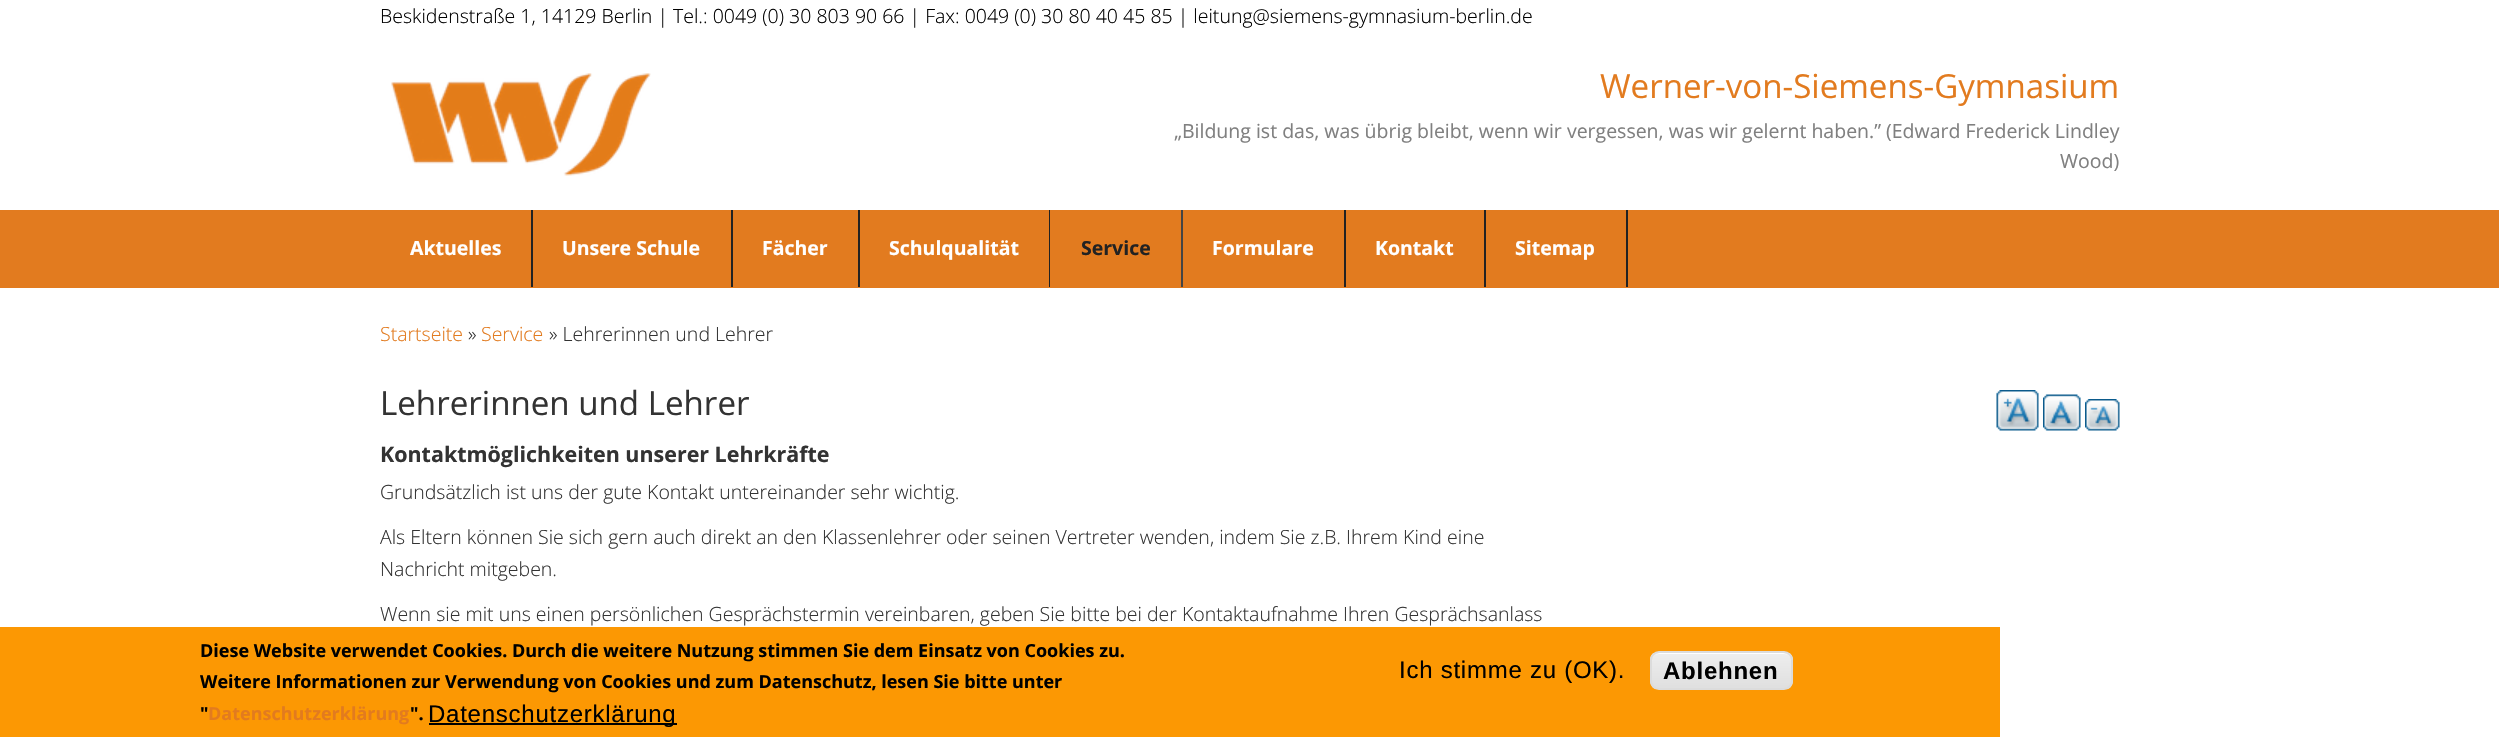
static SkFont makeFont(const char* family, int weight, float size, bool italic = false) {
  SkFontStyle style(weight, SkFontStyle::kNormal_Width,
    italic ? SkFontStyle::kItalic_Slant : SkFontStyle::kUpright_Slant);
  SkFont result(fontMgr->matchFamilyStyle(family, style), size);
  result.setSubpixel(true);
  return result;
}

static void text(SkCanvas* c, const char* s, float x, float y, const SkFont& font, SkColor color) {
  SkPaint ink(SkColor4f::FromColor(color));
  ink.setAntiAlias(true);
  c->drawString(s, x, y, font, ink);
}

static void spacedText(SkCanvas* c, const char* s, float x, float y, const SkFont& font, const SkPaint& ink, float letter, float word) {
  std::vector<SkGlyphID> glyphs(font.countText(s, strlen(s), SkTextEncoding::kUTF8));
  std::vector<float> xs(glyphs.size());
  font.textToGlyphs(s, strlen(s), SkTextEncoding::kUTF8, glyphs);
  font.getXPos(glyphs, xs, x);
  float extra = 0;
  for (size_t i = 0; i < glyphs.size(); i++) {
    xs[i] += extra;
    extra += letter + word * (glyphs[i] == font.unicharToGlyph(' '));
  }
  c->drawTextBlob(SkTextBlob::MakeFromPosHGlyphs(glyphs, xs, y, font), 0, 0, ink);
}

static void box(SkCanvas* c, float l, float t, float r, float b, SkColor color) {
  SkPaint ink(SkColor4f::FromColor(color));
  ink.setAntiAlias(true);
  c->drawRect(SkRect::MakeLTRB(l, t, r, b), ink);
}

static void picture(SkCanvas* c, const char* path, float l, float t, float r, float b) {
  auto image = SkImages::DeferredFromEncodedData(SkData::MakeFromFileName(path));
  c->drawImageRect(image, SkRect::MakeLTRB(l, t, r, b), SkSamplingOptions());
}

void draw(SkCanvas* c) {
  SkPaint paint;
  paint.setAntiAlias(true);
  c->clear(0xffffffff);
  SkFont face1 = makeFont("Open Sans", 300, 19.5f);
  text(c, "Beskidenstraße 1, 14129 Berlin | Tel.: 0049 (0) 30 803 90 66 | Fax: 0049 (0) 30 80 40 45 85 | leitung@siemens-gymnasium-berlin.de", 380, 23, face1, 0xff000000);
  picture(c, "img_01.png", 391, 73, 651, 176);
  SkFont face2 = makeFont("Open Sans", 400, 33.1f);
  text(c, "Werner-von-Siemens-Gymnasium", 1600, 98, face2, 0xffe27b1f);
  SkFont face3 = makeFont("Open Sans", 400, 19.5f);
  text(c, "„Bildung ist das, was übrig bleibt, wenn wir vergessen, was wir gelernt haben.” (Edward Frederick Lindley", 1174, 138, face3, 0xff808080);
  text(c, "Wood)", 2060, 168, face3, 0xff808080);
  box(c, 0, 210, 2499, 288, 0xffe27b1f);
  box(c, 531, 210, 533, 287, 0xff222222);
  SkFont face4 = makeFont("Open Sans", 700, 19.5f);
  text(c, "Aktuelles", 410, 255, face4, 0xffffffff);
  box(c, 731, 210, 733, 287, 0xff222222);
  text(c, "Unsere Schule", 562, 255, face4, 0xffffffff);
  box(c, 858, 210, 860, 287, 0xff222222);
  text(c, "Fächer", 762, 255, face4, 0xffffffff);
  box(c, 1049, 210, 1050, 287, 0xff222222);
  text(c, "Schulqualität", 889, 255, face4, 0xffffffff);
  box(c, 1181, 210, 1183, 287, 0xff444444);
  text(c, "Service", 1081, 255, face4, 0xff222222);
  box(c, 1344, 210, 1346, 287, 0xff222222);
  text(c, "Formulare", 1212, 255, face4, 0xffffffff);
  box(c, 1484, 210, 1486, 287, 0xff222222);
  text(c, "Kontakt", 1375, 255, face4, 0xffffffff);
  box(c, 1626, 210, 1628, 287, 0xff222222);
  text(c, "Sitemap", 1515, 255, face4, 0xffffffff);
  text(c, "Startseite", 380, 341, face1, 0xffe27b1f);
  text(c, "»", 468, 341, face1, 0xff333333);
  text(c, "Service", 481, 341, face1, 0xffe27b1f);
  text(c, "» Lehrerinnen und Lehrer", 549, 341, face1, 0xff333333);
  text(c, "Lehrerinnen und Lehrer", 380, 415, face2, 0xff333333);
  SkFont face5 = makeFont("Open Sans", 700, 21.45f);
  text(c, "Kontaktmöglichkeiten unserer Lehrkräfte", 380, 462, face5, 0xff333333);
  text(c, "Grundsätzlich ist uns der gute Kontakt untereinander sehr wichtig.", 380, 499, face1, 0xff333333);
  text(c, "Als Eltern können Sie sich gern auch direkt an den Klassenlehrer oder seinen Vertreter wenden, indem Sie z.B. Ihrem Kind eine", 380, 544, face1, 0xff333333);
  text(c, "Nachricht mitgeben.", 380, 576, face1, 0xff333333);
  text(c, "Wenn sie mit uns einen persönlichen Gesprächstermin vereinbaren, geben Sie bitte bei der Kontaktaufnahme Ihren Gesprächsanlass", 380, 621, face1, 0xff333333);
  picture(c, "img_02.png", 1996, 390, 2039, 431);
  picture(c, "img_03.png", 2043, 394, 2081, 431);
  picture(c, "img_04.png", 2085, 399, 2120, 431);
  box(c, 0, 627, 2000, 737, 0xfffc9803);
  SkFont face6 = makeFont("Open Sans", 700, 18);
  text(c, "Diese Website verwendet Cookies. Durch die weitere Nutzung stimmen Sie dem Einsatz von Cookies zu.", 200, 657, face6, 0xff000000);
  text(c, "Weitere Informationen zur Verwendung von Cookies und zum Datenschutz, lesen Sie bitte unter", 200, 688, face6, 0xff000000);
  text(c, "\"", 200, 720, face6, 0xff000000);
  text(c, "Datenschutzerklärung", 208, 720, face6, 0xffe27b1f);
  text(c, "\".", 410, 720, face6, 0xff000000);
  box(c, 429, 723, 677, 725, 0xff000000);
  SkFont face7 = makeFont("Liberation Sans", 400, 24);
  paint.setColor(0xff000000);
  spacedText(c, "Datenschutzerklärung", 428, 722, face7, paint, 0.75f, 0);
  spacedText(c, "Ich stimme zu (OK).", 1399, 678, face7, paint, 0.75f, 0);
  c->save();
  c->clipPath(SkPathBuilder().moveTo(1659, 651).lineTo(1784, 651).cubicTo(1789, 651, 1793, 655, 1793, 660).lineTo(1793, 681).cubicTo(1793, 686, 1789, 690, 1784, 690).lineTo(1659, 690).cubicTo(1654, 690, 1650, 686, 1650, 681).lineTo(1650, 660).cubicTo(1650, 655, 1654, 651, 1659, 651).close().detach(), true);
  {
    const SkColor colors[] = {0xffededed, 0xffdfdfdf};
    const float stops[] = {0.05f, 1};
    const SkPoint ends[] = {{1721, 653}, {1721, 689}};
    paint.setShader(SkGradientShader::MakeLinear(ends, colors, stops, 2, SkTileMode::kClamp));
    paint.setAlpha(255);
  }
  c->drawRect(SkRect::MakeLTRB(1650, 653, 1793, 689), paint);
  c->restore();
  paint.setShader(nullptr);
  paint.setColor(0xffffffff);
  c->drawPath(SkPathBuilder().moveTo(1659, 654).lineTo(1784, 654).cubicTo(1788, 654, 1791, 657, 1791, 662).cubicTo(1791, 648, 1770, 653, 1762, 653).lineTo(1680, 653).cubicTo(1673, 653, 1652, 648, 1652, 662).cubicTo(1652, 657, 1655, 654, 1659, 654).close().detach(), paint);
  paint.setStyle(SkPaint::kStroke_Style);
  paint.setStrokeWidth(2);
  paint.setColor(0xffdcdcdc);
  c->drawRoundRect(SkRect::MakeLTRB(1651, 652, 1792, 689), 8, 8, paint);
  SkFont face8 = makeFont("Liberation Sans", 700, 24);
  paint.setStyle(SkPaint::kFill_Style);
  paint.setColor(0xff000000);
  spacedText(c, "Ablehnen", 1663, 679, face8, paint, 0.75f, 0);
}
